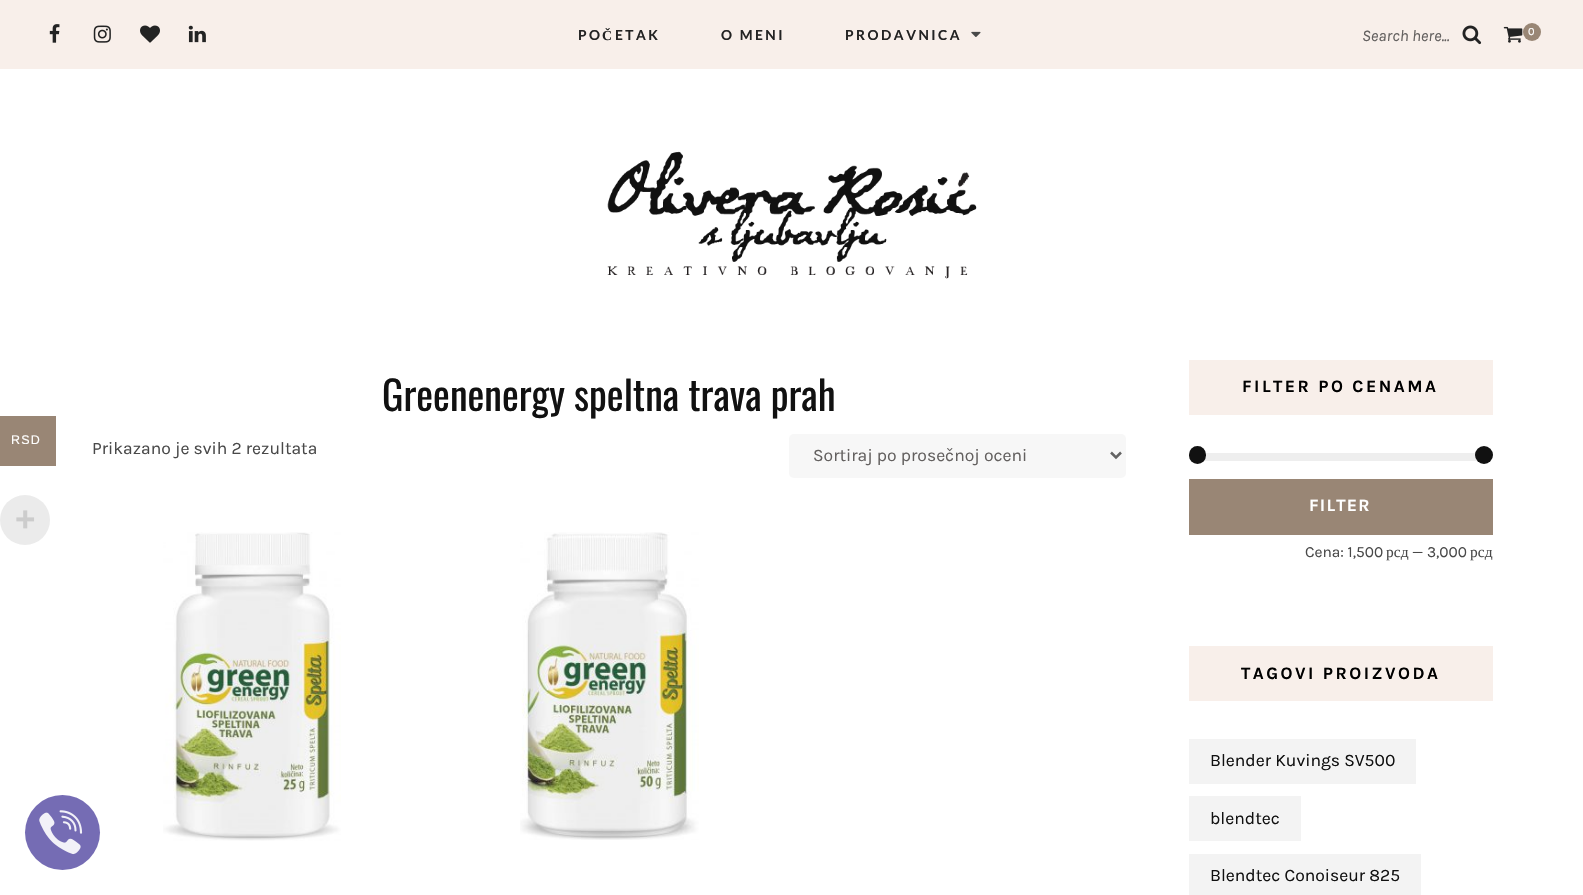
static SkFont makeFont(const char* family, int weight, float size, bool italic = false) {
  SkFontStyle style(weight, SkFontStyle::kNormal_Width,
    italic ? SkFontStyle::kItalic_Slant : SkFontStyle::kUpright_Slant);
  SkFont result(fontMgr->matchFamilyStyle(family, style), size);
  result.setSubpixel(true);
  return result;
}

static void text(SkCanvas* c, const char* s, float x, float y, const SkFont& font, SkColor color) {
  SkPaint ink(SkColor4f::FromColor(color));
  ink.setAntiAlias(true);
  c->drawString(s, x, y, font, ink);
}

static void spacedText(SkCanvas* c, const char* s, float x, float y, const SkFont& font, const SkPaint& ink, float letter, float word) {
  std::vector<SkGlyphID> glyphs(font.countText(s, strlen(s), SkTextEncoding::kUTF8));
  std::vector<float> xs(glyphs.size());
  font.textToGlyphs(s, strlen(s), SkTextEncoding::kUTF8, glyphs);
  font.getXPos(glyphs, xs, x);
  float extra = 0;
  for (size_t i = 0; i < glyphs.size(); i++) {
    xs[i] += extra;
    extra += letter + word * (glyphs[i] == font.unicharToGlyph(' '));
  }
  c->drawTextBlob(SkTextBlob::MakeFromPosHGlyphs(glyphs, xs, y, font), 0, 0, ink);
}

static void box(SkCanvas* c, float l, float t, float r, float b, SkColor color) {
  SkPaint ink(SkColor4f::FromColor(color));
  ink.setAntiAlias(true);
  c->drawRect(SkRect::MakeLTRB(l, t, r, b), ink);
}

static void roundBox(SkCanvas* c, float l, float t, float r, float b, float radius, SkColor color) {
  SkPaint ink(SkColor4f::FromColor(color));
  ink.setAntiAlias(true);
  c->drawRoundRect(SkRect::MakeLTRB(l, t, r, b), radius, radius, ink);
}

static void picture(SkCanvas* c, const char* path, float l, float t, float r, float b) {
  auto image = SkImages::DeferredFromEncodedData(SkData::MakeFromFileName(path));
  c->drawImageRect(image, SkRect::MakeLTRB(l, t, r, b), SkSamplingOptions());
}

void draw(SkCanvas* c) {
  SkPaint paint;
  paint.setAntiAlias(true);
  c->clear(0xffffffff);
  box(c, 0, 0, 1583, 69, 0xfff8efea);
  picture(c, "img_01.png", 49, 24, 60, 43);
  picture(c, "img_02.png", 93, 25, 111, 43);
  picture(c, "img_03.png", 140, 25, 160, 43);
  picture(c, "img_04.png", 188, 25, 206, 43);
  SkFont face1 = makeFont("Lato", 700, 13.75f);
  paint.setColor(0xff232323);
  spacedText(c, "PO", 578, 40, face1, paint, 2.5f, 0);
  SkFont face2 = makeFont("Liberation Serif", 700, 13.75f);
  spacedText(c, "Č", 602, 40, face2, paint, 2.5f, 0);
  spacedText(c, "ETAK", 615, 40, face1, paint, 2.5f, 0);
  spacedText(c, "O MENI", 721, 40, face1, paint, 2.5f, 0);
  spacedText(c, "PRODAVNICA", 845, 40, face1, paint, 2.5f, 0);
  picture(c, "img_05.png", 971, 31, 981, 37);
  SkFont face3 = makeFont("Karla", 400, 16.25f, true);
  text(c, "Search here...", 1362, 41, face3, 0xff63605f);
  picture(c, "img_06.png", 1462, 25, 1482, 45);
  picture(c, "img_07.png", 1503, 26, 1523, 43);
  paint.setColor(0xff998675);
  c->drawCircle(1532, 32, 9, paint);
  SkFont face4 = makeFont("Karla", 400, 11);
  text(c, "0", 1528, 35, face4, 0xffffffff);
  picture(c, "img_08.png", 607, 151, 977, 279);
  box(c, 0, 416, 56, 466, 0xff998675);
  SkFont face5 = makeFont("Liberation Sans", 400, 12.5f);
  paint.setColor(0xffffffff);
  spacedText(c, "RSD", 11, 444, face5, paint, 1.25f, 0);
  paint.setColor(0xffebebeb);
  c->drawCircle(25, 520, 25, paint);
  SkFont face6 = makeFont("Liberation Sans", 700, 35);
  text(c, "+", 15, 531, face6, 0xffcccccc);
  SkFont face7 = makeFont("Oswald", 400, 40);
  text(c, "Greenenergy speltna trava prah", 382, 411, face7, 0xff111111);
  SkFont face8 = makeFont("Karla", 400, 17.5f);
  text(c, "Prikazano je svih 2 rezultata", 92, 454, face8, 0xff494949);
  roundBox(c, 789, 434, 1126, 478, 5, 0xfff7f7f7);
  paint.setStyle(SkPaint::kStroke_Style);
  paint.setStrokeWidth(2.5f);
  paint.setColor(0xff636363);
  c->drawPath(SkPathBuilder().moveTo(1111, 452.5f).lineTo(1116, 457.5f).lineTo(1121, 452.5f).detach(), paint);
  text(c, "Sortiraj po prosečnoj oceni", 813, 461, face8, 0xff63605f);
  picture(c, "img_09.png", 163, 532, 341, 841);
  picture(c, "img_10.png", 520, 532, 699, 840);
  box(c, 1189, 360, 1493, 415, 0xfff8efea);
  SkFont face9 = makeFont("Karla", 700, 17.5f);
  paint.setStyle(SkPaint::kFill_Style);
  paint.setColor(0xff000000);
  spacedText(c, "FILTER PO CENAMA", 1242, 392, face9, paint, 2.5f, 0);
  box(c, 1198, 453, 1484, 461, 0xffeeeeee);
  roundBox(c, 1189, 446, 1206, 464, 8.5f, 0xff111111);
  paint.setColor(0xff111111);
  c->drawCircle(1484, 455, 9, paint);
  box(c, 1189, 479, 1493, 535, 0xff998675);
  paint.setColor(0xffffffff);
  spacedText(c, "FILTER", 1309, 511, face9, paint, 1.25f, 0);
  SkFont face10 = makeFont("Karla", 400, 15.5f);
  text(c, "Cena: 1,500", 1305, 557, face10, 0xff494949);
  SkFont face11 = makeFont("Liberation Serif", 400, 15.5f);
  text(c, "рсд", 1386, 557, face11, 0xff494949);
  text(c, "— 3,000", 1412, 557, face10, 0xff494949);
  text(c, "рсд", 1470, 557, face11, 0xff494949);
  box(c, 1189, 646, 1493, 701, 0xfff8efea);
  paint.setColor(0xff000000);
  spacedText(c, "TAGOVI PROIZVODA", 1241, 679, face9, paint, 2.5f, 0);
  box(c, 1189, 739, 1416, 784, 0xfff3f3f3);
  text(c, "Blender Kuvings SV500", 1210, 766, face8, 0xff111111);
  box(c, 1189, 796, 1301, 841, 0xfff3f3f3);
  text(c, "blendtec", 1210, 824, face8, 0xff111111);
  box(c, 1189, 854, 1421, 895, 0xfff3f3f3);
  text(c, "Blendtec Conoiseur 825", 1210, 881, face8, 0xff111111);
  paint.setColor(0xff756cb4);
  c->drawCircle(62.5f, 832.5f, 37.5f, paint);
  picture(c, "img_11.png", 39, 810, 83, 855);
}
